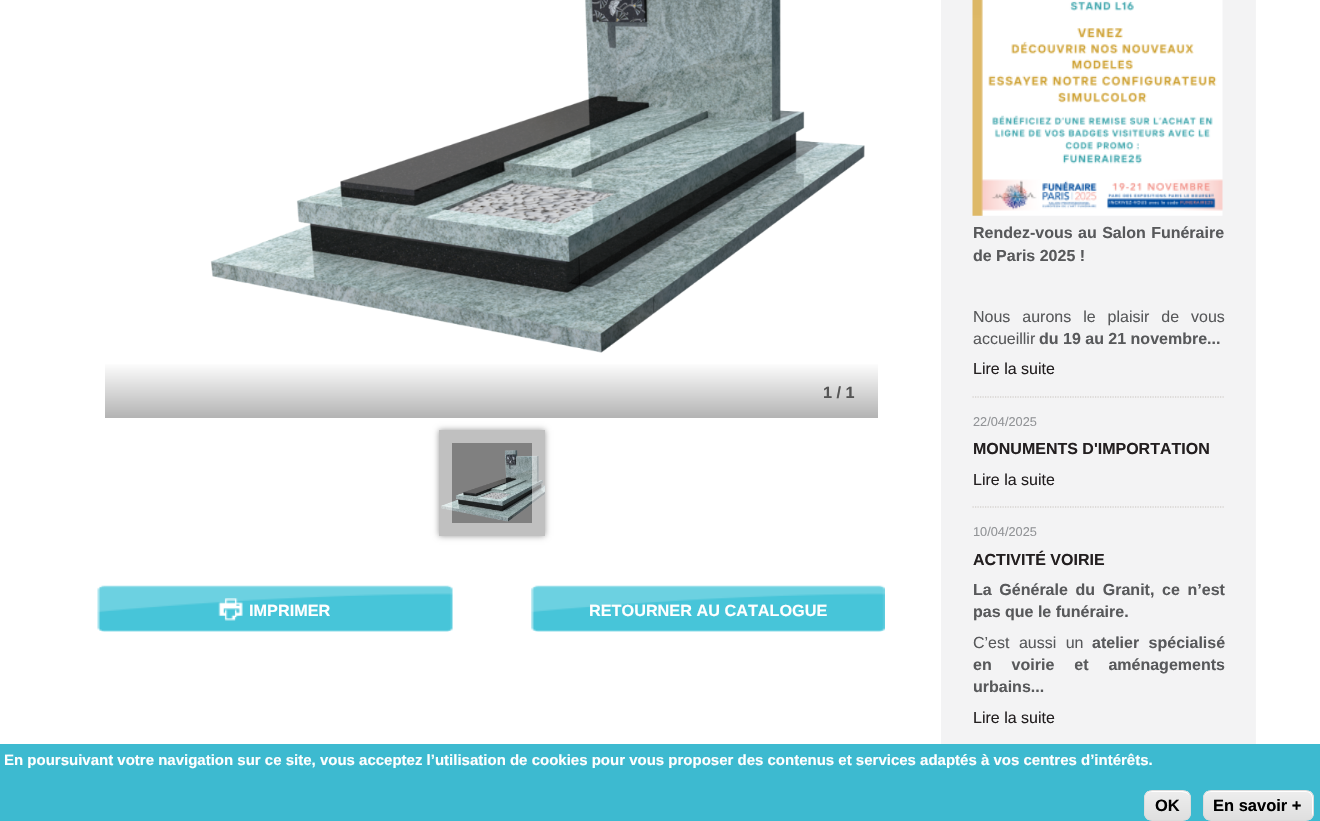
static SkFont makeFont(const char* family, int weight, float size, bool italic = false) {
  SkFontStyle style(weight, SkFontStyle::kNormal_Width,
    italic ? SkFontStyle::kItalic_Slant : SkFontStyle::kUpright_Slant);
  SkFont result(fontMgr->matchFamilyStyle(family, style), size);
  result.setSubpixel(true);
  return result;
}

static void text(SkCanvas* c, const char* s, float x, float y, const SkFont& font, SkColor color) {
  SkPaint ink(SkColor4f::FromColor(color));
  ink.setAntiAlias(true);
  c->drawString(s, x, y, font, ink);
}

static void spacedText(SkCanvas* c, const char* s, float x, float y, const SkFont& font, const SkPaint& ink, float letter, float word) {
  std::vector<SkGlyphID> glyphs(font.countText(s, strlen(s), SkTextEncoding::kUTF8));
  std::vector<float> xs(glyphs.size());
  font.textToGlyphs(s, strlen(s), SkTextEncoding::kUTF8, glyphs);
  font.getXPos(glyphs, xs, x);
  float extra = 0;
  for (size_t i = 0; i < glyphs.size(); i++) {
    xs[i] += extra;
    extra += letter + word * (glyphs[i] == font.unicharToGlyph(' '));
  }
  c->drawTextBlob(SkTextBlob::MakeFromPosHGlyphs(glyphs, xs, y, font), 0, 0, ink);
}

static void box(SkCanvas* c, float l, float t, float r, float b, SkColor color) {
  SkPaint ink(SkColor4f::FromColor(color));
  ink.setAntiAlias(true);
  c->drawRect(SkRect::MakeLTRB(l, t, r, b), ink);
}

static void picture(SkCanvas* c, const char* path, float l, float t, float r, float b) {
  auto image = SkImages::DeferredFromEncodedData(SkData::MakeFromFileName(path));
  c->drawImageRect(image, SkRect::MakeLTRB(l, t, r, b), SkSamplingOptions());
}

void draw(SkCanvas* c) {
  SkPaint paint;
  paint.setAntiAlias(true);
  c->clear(0xffffffff);
  box(c, 1255, 0, 1256, 744, 0xfff4f4f5);
  picture(c, "img_01.png", 210, 0, 865, 353);
  {
    const SkColor colors[] = {0xffffffff, 0xffb3b3b3};
    const float stops[] = {0, 1};
    const SkPoint ends[] = {{491, 362}, {491, 418}};
    paint.setShader(SkGradientShader::MakeLinear(ends, colors, stops, 2, SkTileMode::kClamp));
    paint.setAlpha(255);
  }
  c->drawRect(SkRect::MakeLTRB(105, 364, 878, 418), paint);
  SkFont face1 = makeFont("Liberation Sans", 700, 16.25f);
  text(c, "1 / 1", 823, 398, face1, 0xff555555);
  paint.setShader(nullptr);
  paint.setColor(0x66000000);
  paint.setMaskFilter(SkMaskFilter::MakeBlur(kNormal_SkBlurStyle, 3));
  c->drawRect(SkRect::MakeLTRB(439, 430, 545, 536), paint);
  paint.setMaskFilter(nullptr);
  box(c, 439, 430, 545, 536, 0xff808080);
  picture(c, "img_02.png", 441, 450, 545, 522);
  paint.setStyle(SkPaint::kStroke_Style);
  paint.setStrokeWidth(13);
  paint.setColor(0x80ffffff);
  c->drawRect(SkRect::MakeLTRB(445.5f, 436.5f, 538.5f, 529.5f), paint);
  picture(c, "img_03.png", 97, 585, 453, 632);
  picture(c, "img_04.png", 218, 598, 243, 621);
  text(c, "IMPRIMER", 249, 616, face1, 0xffffffff);
  picture(c, "img_05.png", 531, 585, 885, 632);
  text(c, "RETOURNER AU CATALOGUE", 589, 616, face1, 0xffffffff);
  box(c, 941, 0, 1255, 744, 0xfff3f3f4);
  paint.setStrokeWidth(1.2f);
  paint.setColor(0xffc9c3bf);
  paint.setPathEffect(SkDashPathEffect::Make({{1.25f, 1.25f}}, 0));
  c->drawPath(SkPathBuilder().moveTo(972.5f, 397).lineTo(1224, 397).detach(), paint);
  paint.setPathEffect(nullptr);
  picture(c, "img_06.png", 972, 0, 1223, 216);
  SkFont face2 = makeFont("Liberation Sans", 700, 16);
  paint.setStyle(SkPaint::kFill_Style);
  paint.setColor(0xff58595b);
  spacedText(c, "Rendez-vous au Salon Funéraire", 973, 238, face2, paint, 0, 1);
  text(c, "de Paris 2025 !", 973, 261, face2, 0xff58595b);
  SkFont face3 = makeFont("Liberation Sans", 400, 16);
  spacedText(c, "Nous aurons le plaisir de vous", 973, 322, face3, paint, 0, 7.5f);
  text(c, "accueillir", 973, 344, face3, 0xff58595b);
  text(c, "du 19 au 21 novembre...", 1039, 344, face2, 0xff58595b);
  text(c, "Lire la suite", 973, 374, face3, 0xff231f20);
  paint.setStyle(SkPaint::kStroke_Style);
  paint.setColor(0xffc9c3bf);
  paint.setPathEffect(SkDashPathEffect::Make({{1.25f, 1.25f}}, 0));
  c->drawPath(SkPathBuilder().moveTo(972.5f, 507).lineTo(1224, 507).detach(), paint);
  paint.setPathEffect(nullptr);
  SkFont face4 = makeFont("Liberation Sans", 400, 12.75f);
  text(c, "22/04/2025", 973, 426, face4, 0xff929497);
  text(c, "MONUMENTS D'IMPORTATION", 973, 454, face2, 0xff231f20);
  text(c, "Lire la suite", 973, 485, face3, 0xff231f20);
  text(c, "10/04/2025", 973, 536, face4, 0xff929497);
  text(c, "ACTIVITÉ VOIRIE", 973, 565, face2, 0xff231f20);
  paint.setStyle(SkPaint::kFill_Style);
  paint.setColor(0xff58595b);
  spacedText(c, "La Générale du Granit, ce n’est", 973, 595, face2, paint, 0, 3.25f);
  text(c, "pas que le funéraire.", 973, 617, face2, 0xff58595b);
  spacedText(c, "C’est aussi un", 973, 648, face3, paint, 0, 5);
  spacedText(c, "atelier spécialisé", 1092, 648, face2, paint, 0, 5);
  spacedText(c, "en voirie et aménagements", 973, 670, face2, paint, 0, 15.5f);
  text(c, "urbains...", 973, 692, face2, 0xff58595b);
  text(c, "Lire la suite", 973, 723, face3, 0xff231f20);
  box(c, 0, 744, 1320, 821, 0xff3dbad0);
  SkFont face5 = makeFont("Liberation Sans", 700, 15);
  text(c, "En poursuivant votre navigation sur ce site, vous acceptez l’utilisation de cookies pour vous proposer des contenus et services adaptés à vos centres d’intérêts.", 4, 765, face5, 0xffffffff);
  c->save();
  c->clipPath(SkPathBuilder().moveTo(1152, 790).lineTo(1183, 790).cubicTo(1187.5f, 790, 1191, 793.5f, 1191, 798).lineTo(1191, 813).cubicTo(1191, 817.5f, 1187.5f, 821, 1183, 821).lineTo(1152, 821).cubicTo(1147.5f, 821, 1144, 817.5f, 1144, 813).lineTo(1144, 798).cubicTo(1144, 793.5f, 1147.5f, 790, 1152, 790).close().detach(), true);
  {
    const SkColor colors[] = {0xffededed, 0xffdfdfdf};
    const float stops[] = {0.05f, 1};
    const SkPoint ends[] = {{1145, 791}, {1145, 820}};
    paint.setShader(SkGradientShader::MakeLinear(ends, colors, stops, 2, SkTileMode::kClamp));
    paint.setAlpha(255);
  }
  c->drawRect(SkRect::MakeLTRB(1144, 791, 1191, 820), paint);
  c->restore();
  paint.setShader(nullptr);
  paint.setColor(0xffffffff);
  c->drawPath(SkPathBuilder(SkPathFillType::kEvenOdd).moveTo(1151, 792).lineTo(1178, 792).cubicTo(1188, 792, 1190, 794, 1190, 801).cubicTo(1190, 791, 1188, 791, 1178, 791).lineTo(1156, 791).cubicTo(1147, 791, 1145, 791, 1145, 801).cubicTo(1145, 796, 1146, 792, 1151, 792).close().moveTo(1190, 813).lineTo(1189, 816).close().moveTo(1145, 815).lineTo(1145, 813).close().detach(), paint);
  paint.setStyle(SkPaint::kStroke_Style);
  paint.setStrokeWidth(1);
  paint.setColor(0xffdcdcdc);
  c->drawRoundRect(SkRect::MakeLTRB(1144.5f, 790.5f, 1190.5f, 820.5f), 7.5f, 7.5f, paint);
  SkFont face6 = makeFont("Liberation Sans", 700, 16.5f);
  text(c, "OK", 1155, 811, face6, 0xff000000);
  c->save();
  c->clipPath(SkPathBuilder().moveTo(1211, 790).lineTo(1306, 790).cubicTo(1310.5f, 790, 1314, 793.5f, 1314, 798).lineTo(1314, 813).cubicTo(1314, 817.5f, 1310.5f, 821, 1306, 821).lineTo(1211, 821).cubicTo(1206.5f, 821, 1203, 817.5f, 1203, 813).lineTo(1203, 798).cubicTo(1203, 793.5f, 1206.5f, 790, 1211, 790).close().detach(), true);
  paint.setStyle(SkPaint::kFill_Style);
  {
    const SkColor colors[] = {0xffededed, 0xffdfdfdf};
    const float stops[] = {0.05f, 1};
    const SkPoint ends[] = {{1204, 791}, {1204, 820}};
    paint.setShader(SkGradientShader::MakeLinear(ends, colors, stops, 2, SkTileMode::kClamp));
    paint.setAlpha(255);
  }
  c->drawRect(SkRect::MakeLTRB(1203, 791, 1314, 820), paint);
  c->restore();
  paint.setShader(nullptr);
  paint.setColor(0xffffffff);
  c->drawPath(SkPathBuilder().moveTo(1210, 792).lineTo(1306, 792).cubicTo(1310, 792, 1312, 795, 1312, 799).lineTo(1312, 815).cubicTo(1312, 816, 1312, 817, 1311, 818).cubicTo(1312, 817, 1313, 816, 1313, 814).lineTo(1313, 797).cubicTo(1313, 794, 1310, 791, 1307, 791).lineTo(1210, 791).cubicTo(1207, 791, 1204, 794, 1204, 797).lineTo(1204, 799).cubicTo(1204, 795, 1207, 792, 1210, 792).close().detach(), paint);
  paint.setStyle(SkPaint::kStroke_Style);
  paint.setColor(0xffdcdcdc);
  c->drawRoundRect(SkRect::MakeLTRB(1203.5f, 790.5f, 1313.5f, 820.5f), 7.5f, 7.5f, paint);
  text(c, "En savoir +", 1213, 811, face6, 0xff000000);
}
